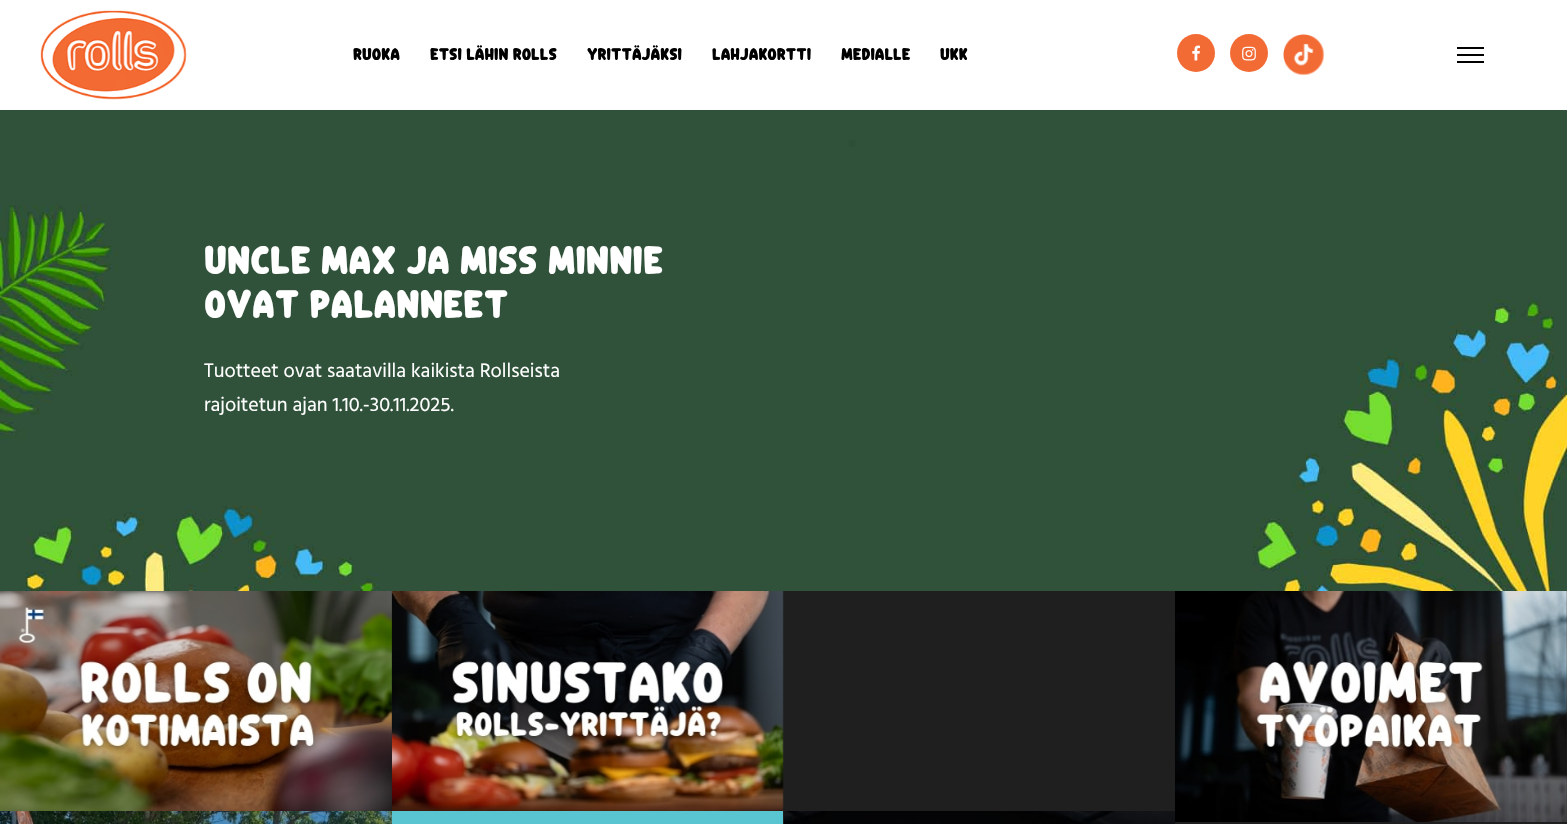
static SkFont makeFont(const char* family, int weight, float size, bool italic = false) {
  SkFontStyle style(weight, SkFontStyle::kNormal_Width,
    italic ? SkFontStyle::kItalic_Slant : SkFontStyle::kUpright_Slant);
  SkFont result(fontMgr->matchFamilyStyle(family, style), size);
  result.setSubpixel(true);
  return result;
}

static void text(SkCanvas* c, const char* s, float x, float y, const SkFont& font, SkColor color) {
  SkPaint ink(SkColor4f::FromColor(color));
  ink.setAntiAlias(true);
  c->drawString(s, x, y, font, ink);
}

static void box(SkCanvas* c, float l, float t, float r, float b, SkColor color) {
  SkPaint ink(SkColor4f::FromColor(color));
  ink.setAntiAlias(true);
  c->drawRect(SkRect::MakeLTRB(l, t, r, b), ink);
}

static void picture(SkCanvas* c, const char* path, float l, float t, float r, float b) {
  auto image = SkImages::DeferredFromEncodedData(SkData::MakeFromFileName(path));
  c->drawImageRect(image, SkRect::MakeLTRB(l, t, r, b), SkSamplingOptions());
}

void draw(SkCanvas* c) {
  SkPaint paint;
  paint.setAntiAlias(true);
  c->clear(0xffffffff);
  picture(c, "img_01.png", 40, 10, 187, 100);
  SkFont face1 = makeFont("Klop", 400, 17);
  text(c, "Ruoka", 353, 60, face1, 0xff000000);
  text(c, "Etsi lähin Rolls", 430, 60, face1, 0xff000000);
  text(c, "Yrittäjäksi", 587, 60, face1, 0xff000000);
  text(c, "Lahjakortti", 712, 60, face1, 0xff000000);
  text(c, "Medialle", 841, 60, face1, 0xff000000);
  text(c, "UKK", 940, 60, face1, 0xff000000);
  paint.setColor(0xfff36b34);
  c->drawCircle(1196, 53, 19, paint);
  picture(c, "img_02.png", 1192, 45, 1200, 61);
  c->drawCircle(1249, 53, 19, paint);
  picture(c, "img_03.png", 1242, 46, 1256, 61);
  picture(c, "img_04.png", 1283, 34, 1324, 75);
  box(c, 1457, 47, 1484, 49, 0xff000000);
  box(c, 1457, 54, 1484, 56, 0xff000000);
  box(c, 1457, 61, 1484, 63, 0xff000000);
  picture(c, "img_05.png", 0, 110, 1567, 591);
  SkFont face2 = makeFont("Klop", 400, 40);
  text(c, "Uncle Max ja Miss Minnie", 204, 274, face2, 0xffffffff);
  text(c, "ovat palanneet", 204, 318, face2, 0xffffffff);
  SkFont face3 = makeFont("Hind", 400, 20);
  text(c, "Tuotteet ovat saatavilla kaikista Rollseista", 204, 377, face3, 0xffffffff);
  text(c, "rajoitetun ajan 1.10.-30.11.2025.", 204, 411, face3, 0xffffffff);
  box(c, 391, 591, 1567, 824, 0xff1f1f1f);
  picture(c, "img_06.png", 0, 591, 392, 811);
  picture(c, "img_07.png", 392, 591, 784, 822);
  picture(c, "img_08.png", 1175, 591, 1567, 822);
  picture(c, "img_09.png", 0, 811, 392, 824);
  box(c, 392, 811, 783, 824, 0xff59c5d1);
  picture(c, "img_10.png", 784, 811, 1175, 824);
}
